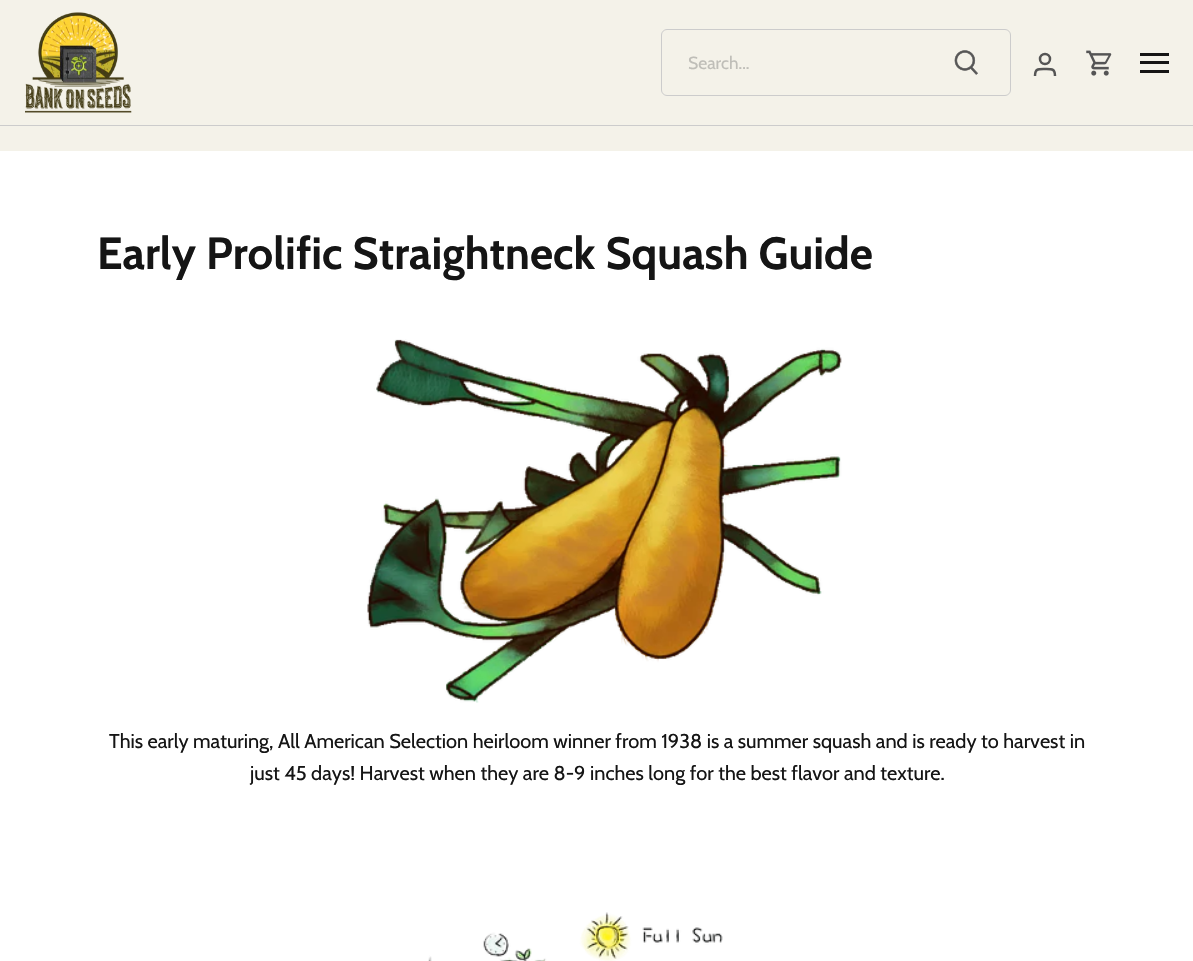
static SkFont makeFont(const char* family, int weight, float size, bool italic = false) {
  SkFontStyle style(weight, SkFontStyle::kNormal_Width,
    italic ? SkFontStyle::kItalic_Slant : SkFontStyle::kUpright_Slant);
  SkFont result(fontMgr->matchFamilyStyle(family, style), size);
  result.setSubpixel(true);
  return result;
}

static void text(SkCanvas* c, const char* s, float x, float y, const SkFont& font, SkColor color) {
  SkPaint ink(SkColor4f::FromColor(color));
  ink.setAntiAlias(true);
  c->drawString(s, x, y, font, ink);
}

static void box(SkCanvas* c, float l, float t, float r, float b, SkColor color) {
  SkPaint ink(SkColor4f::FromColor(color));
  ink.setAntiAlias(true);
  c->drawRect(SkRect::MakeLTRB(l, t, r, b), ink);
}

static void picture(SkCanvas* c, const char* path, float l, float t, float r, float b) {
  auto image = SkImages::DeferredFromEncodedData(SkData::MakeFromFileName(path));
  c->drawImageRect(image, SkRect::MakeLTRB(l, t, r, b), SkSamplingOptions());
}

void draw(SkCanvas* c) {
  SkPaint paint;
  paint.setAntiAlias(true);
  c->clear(0xffffffff);
  box(c, 0, 125, 1193, 126, 0xffcccccc);
  box(c, 0, 0, 1193, 125, 0xfff4f2e9);
  picture(c, "img_01.png", 25, 12, 132, 113);
  paint.setStyle(SkPaint::kStroke_Style);
  paint.setStrokeWidth(1);
  paint.setColor(0xffcccccc);
  c->drawRoundRect(SkRect::MakeLTRB(661.5f, 29.5f, 1010.5f, 95.5f), 5.5f, 5.5f, paint);
  SkFont face1 = makeFont("Cabin", 400, 17.5f);
  text(c, "Search...", 688, 69, face1, 0xffbfbeb8);
  picture(c, "img_02.png", 954, 50, 978, 75);
  paint.setStrokeWidth(2.5f);
  paint.setColor(0xff555555);
  c->drawCircle(1045, 59, 5, paint);
  c->drawPath(SkPathBuilder().moveTo(1055, 76).cubicTo(1055, 68.5f, 1052, 69, 1045, 69).cubicTo(1038, 69, 1035, 68.5f, 1035, 76).detach(), paint);
  picture(c, "img_03.png", 1086, 50, 1112, 76);
  box(c, 1140, 53, 1169, 56, 0xff151515);
  box(c, 1140, 61, 1169, 64, 0xff151515);
  box(c, 1140, 70, 1169, 73, 0xff151515);
  box(c, 0, 126, 1193, 151, 0xfff4f2e9);
  SkFont face2 = makeFont("Cabin", 700, 45);
  text(c, "Early Prolific Straightneck Squash Guide", 97, 269, face2, 0xff151515);
  picture(c, "img_04.png", 367, 339, 842, 703);
  SkFont face3 = makeFont("Cabin", 400, 20);
  text(c, "This early maturing, All American Selection heirloom winner from 1938 is a summer squash and is ready to harvest in", 109, 748, face3, 0xff151515);
  text(c, "just 45 days! Harvest when they are 8-9 inches long for the best flavor and texture.", 250, 780, face3, 0xff151515);
  picture(c, "img_05.png", 428, 912, 723, 961);
}
